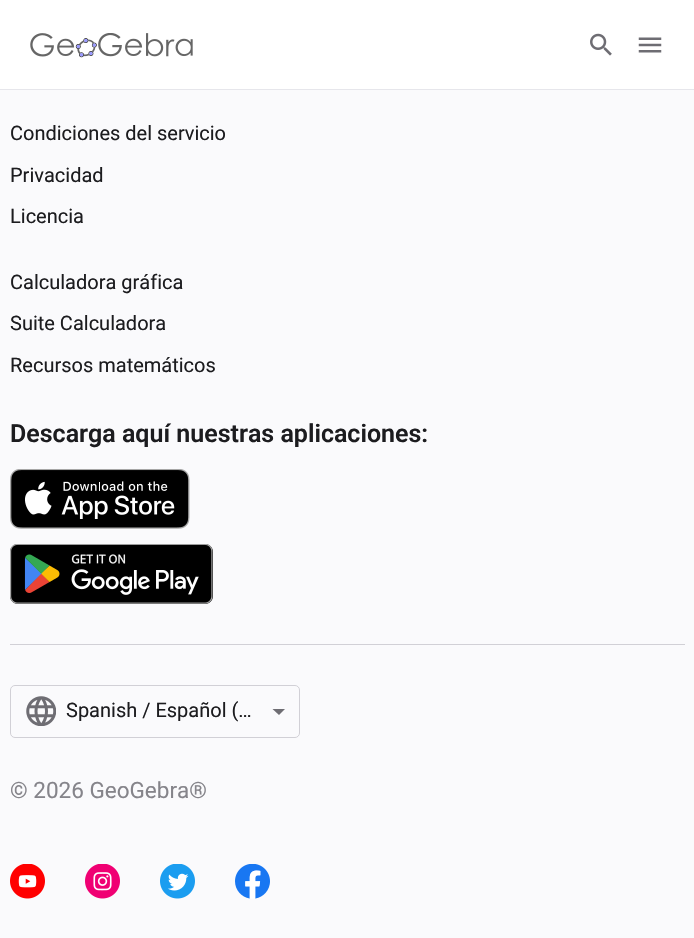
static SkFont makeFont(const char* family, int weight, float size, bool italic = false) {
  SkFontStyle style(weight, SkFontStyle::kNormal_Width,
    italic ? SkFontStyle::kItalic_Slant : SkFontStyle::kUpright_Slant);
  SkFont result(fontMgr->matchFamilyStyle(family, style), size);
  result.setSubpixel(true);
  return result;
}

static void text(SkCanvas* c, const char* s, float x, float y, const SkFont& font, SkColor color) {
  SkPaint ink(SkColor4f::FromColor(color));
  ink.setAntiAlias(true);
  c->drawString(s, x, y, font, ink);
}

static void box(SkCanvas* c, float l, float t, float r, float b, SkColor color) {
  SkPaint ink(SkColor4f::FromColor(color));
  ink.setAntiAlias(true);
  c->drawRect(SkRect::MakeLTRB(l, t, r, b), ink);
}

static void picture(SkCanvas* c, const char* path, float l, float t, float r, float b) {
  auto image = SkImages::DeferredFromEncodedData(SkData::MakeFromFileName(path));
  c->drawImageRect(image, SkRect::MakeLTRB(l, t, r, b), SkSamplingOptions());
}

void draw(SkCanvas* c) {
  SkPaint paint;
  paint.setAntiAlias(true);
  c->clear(0xfffafafc);
  box(c, 0, 0, 694, 89, 0xffffffff);
  box(c, 0, 89, 694, 90, 0xffe6e6eb);
  picture(c, "img_01.png", 30, 33, 193, 58);
  picture(c, "img_02.png", 590, 33, 612, 56);
  picture(c, "img_03.png", 638, 37, 662, 53);
  SkFont face1 = makeFont("Roboto", 400, 20);
  text(c, "Condiciones del servicio", 10, 140, face1, 0xff1c1c1f);
  text(c, "Privacidad", 10, 182, face1, 0xff1c1c1f);
  text(c, "Licencia", 10, 223, face1, 0xff1c1c1f);
  text(c, "Calculadora gráfica", 10, 289, face1, 0xff1c1c1f);
  text(c, "Suite Calculadora", 10, 330, face1, 0xff1c1c1f);
  text(c, "Recursos matemáticos", 10, 372, face1, 0xff1c1c1f);
  SkFont face2 = makeFont("Roboto", 600, 25);
  text(c, "Descarga aquí nuestras aplicaciones:", 10, 442, face2, 0xff1c1c1f);
  picture(c, "img_04.png", 10, 469, 190, 529);
  picture(c, "img_05.png", 10, 544, 213, 604);
  box(c, 10, 644, 685, 645, 0xffd1d0d6);
  paint.setStyle(SkPaint::kStroke_Style);
  paint.setStrokeWidth(1);
  paint.setColor(0xffd1d0d6);
  c->drawRoundRect(SkRect::MakeLTRB(10.5f, 685.5f, 299.5f, 737.5f), 4.5f, 4.5f, paint);
  picture(c, "img_06.png", 26, 696, 56, 726);
  text(c, "Spanish / Español (…", 66, 717, face1, 0xff1c1c1f);
  paint.setStyle(SkPaint::kFill_Style);
  paint.setColor(0xff6e6d73);
  c->drawPath(SkPathBuilder().moveTo(272.5f, 709).lineTo(279, 715).lineTo(285, 709).close().detach(), paint);
  SkFont face3 = makeFont("Roboto", 400, 22.5f);
  text(c, "© 2026 GeoGebra®", 10, 798, face3, 0xff85848a);
  picture(c, "img_07.png", 10, 864, 45, 899);
  picture(c, "img_08.png", 85, 864, 120, 899);
  picture(c, "img_09.png", 160, 864, 195, 899);
  picture(c, "img_10.png", 235, 864, 270, 899);
}
